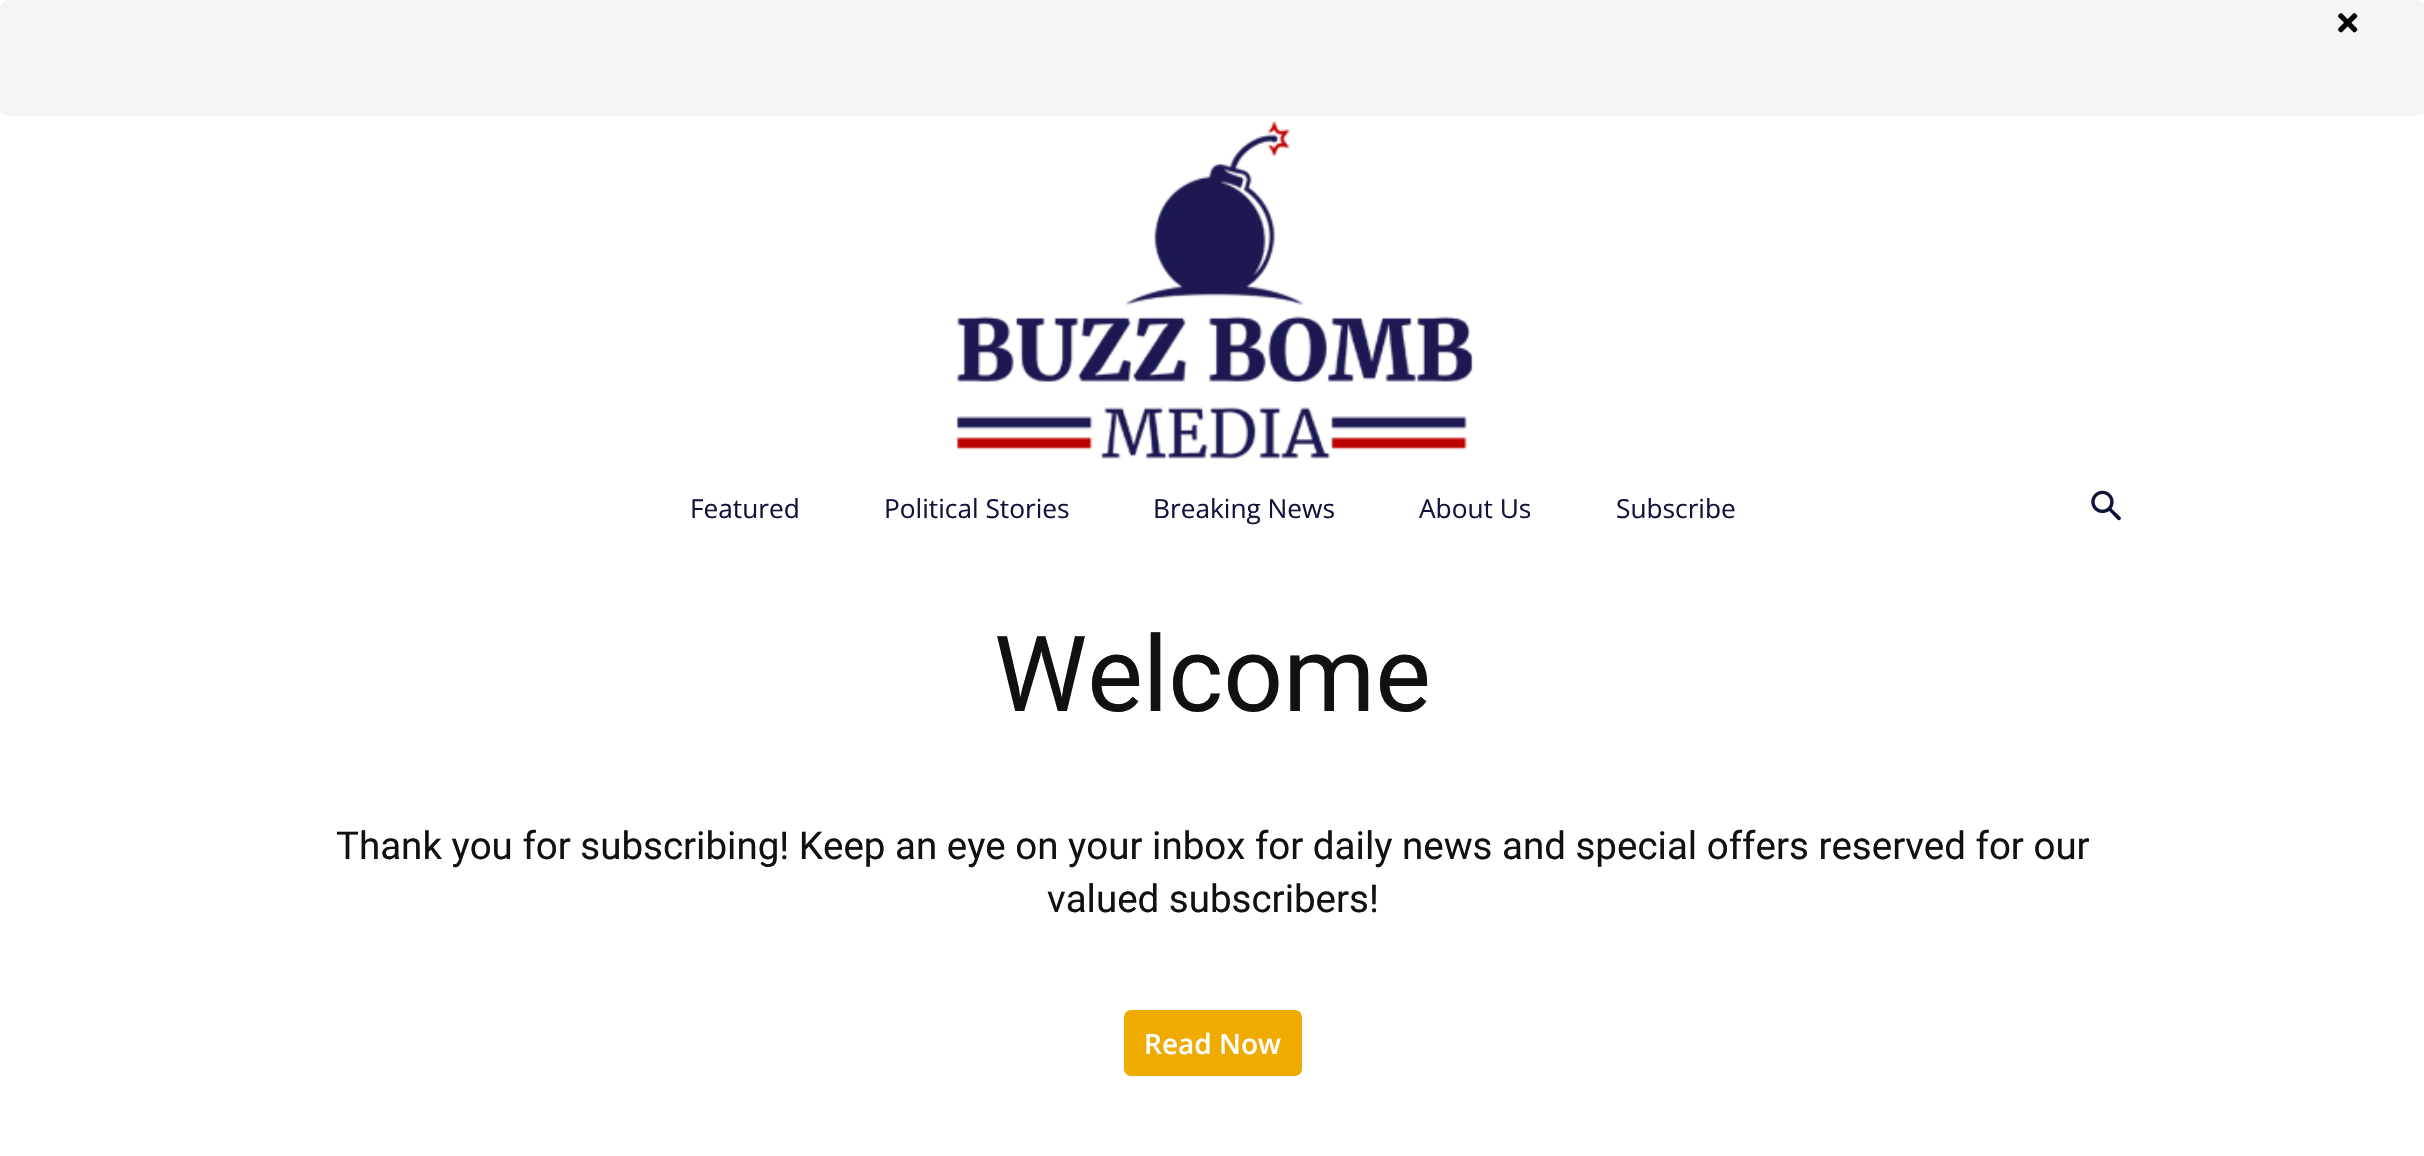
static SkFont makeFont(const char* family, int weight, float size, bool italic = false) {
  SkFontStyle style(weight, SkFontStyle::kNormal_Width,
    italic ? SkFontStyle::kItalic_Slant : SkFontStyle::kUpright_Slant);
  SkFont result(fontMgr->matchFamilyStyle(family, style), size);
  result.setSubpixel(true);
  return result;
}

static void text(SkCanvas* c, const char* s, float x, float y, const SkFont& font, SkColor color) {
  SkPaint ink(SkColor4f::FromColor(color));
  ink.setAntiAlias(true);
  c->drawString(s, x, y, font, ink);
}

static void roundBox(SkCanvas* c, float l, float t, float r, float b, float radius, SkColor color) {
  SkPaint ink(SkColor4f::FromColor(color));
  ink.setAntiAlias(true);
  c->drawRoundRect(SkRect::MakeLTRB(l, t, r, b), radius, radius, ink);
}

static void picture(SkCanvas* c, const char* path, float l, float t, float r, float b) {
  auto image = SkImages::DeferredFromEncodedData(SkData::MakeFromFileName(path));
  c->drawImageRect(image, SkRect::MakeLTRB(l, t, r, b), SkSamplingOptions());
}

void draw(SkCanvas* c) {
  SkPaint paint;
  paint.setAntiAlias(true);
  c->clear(0xffffffff);
  roundBox(c, 0, 0, 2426, 116, 9, 0xfff4f4f4);
  picture(c, "img_01.png", 2338, 13, 2358, 33);
  picture(c, "img_02.png", 956, 120, 1473, 459);
  SkFont face1 = makeFont("Open Sans", 400, 26.25f);
  text(c, "Featured", 690, 518, face1, 0xff10133a);
  text(c, "Political Stories", 884, 518, face1, 0xff10133a);
  text(c, "Breaking News", 1153, 518, face1, 0xff10133a);
  text(c, "About Us", 1419, 518, face1, 0xff10133a);
  text(c, "Subscribe", 1616, 518, face1, 0xff10133a);
  picture(c, "img_03.png", 2091, 490, 2121, 521);
  SkFont face2 = makeFont("Roboto", 400, 105);
  text(c, "Welcome", 994, 711, face2, 0xff111111);
  SkFont face3 = makeFont("Roboto", 400, 38.5f);
  text(c, "Thank you for subscribing! Keep an eye on your inbox for daily news and special offers reserved for our", 336, 859, face3, 0xff111111);
  text(c, "valued subscribers!", 1047, 912, face3, 0xff111111);
  roundBox(c, 1124, 1010, 1302, 1076, 7, 0xffefab00);
  SkFont face4 = makeFont("Open Sans", 600, 28);
  text(c, "Read Now", 1144, 1054, face4, 0xffffffff);
}
